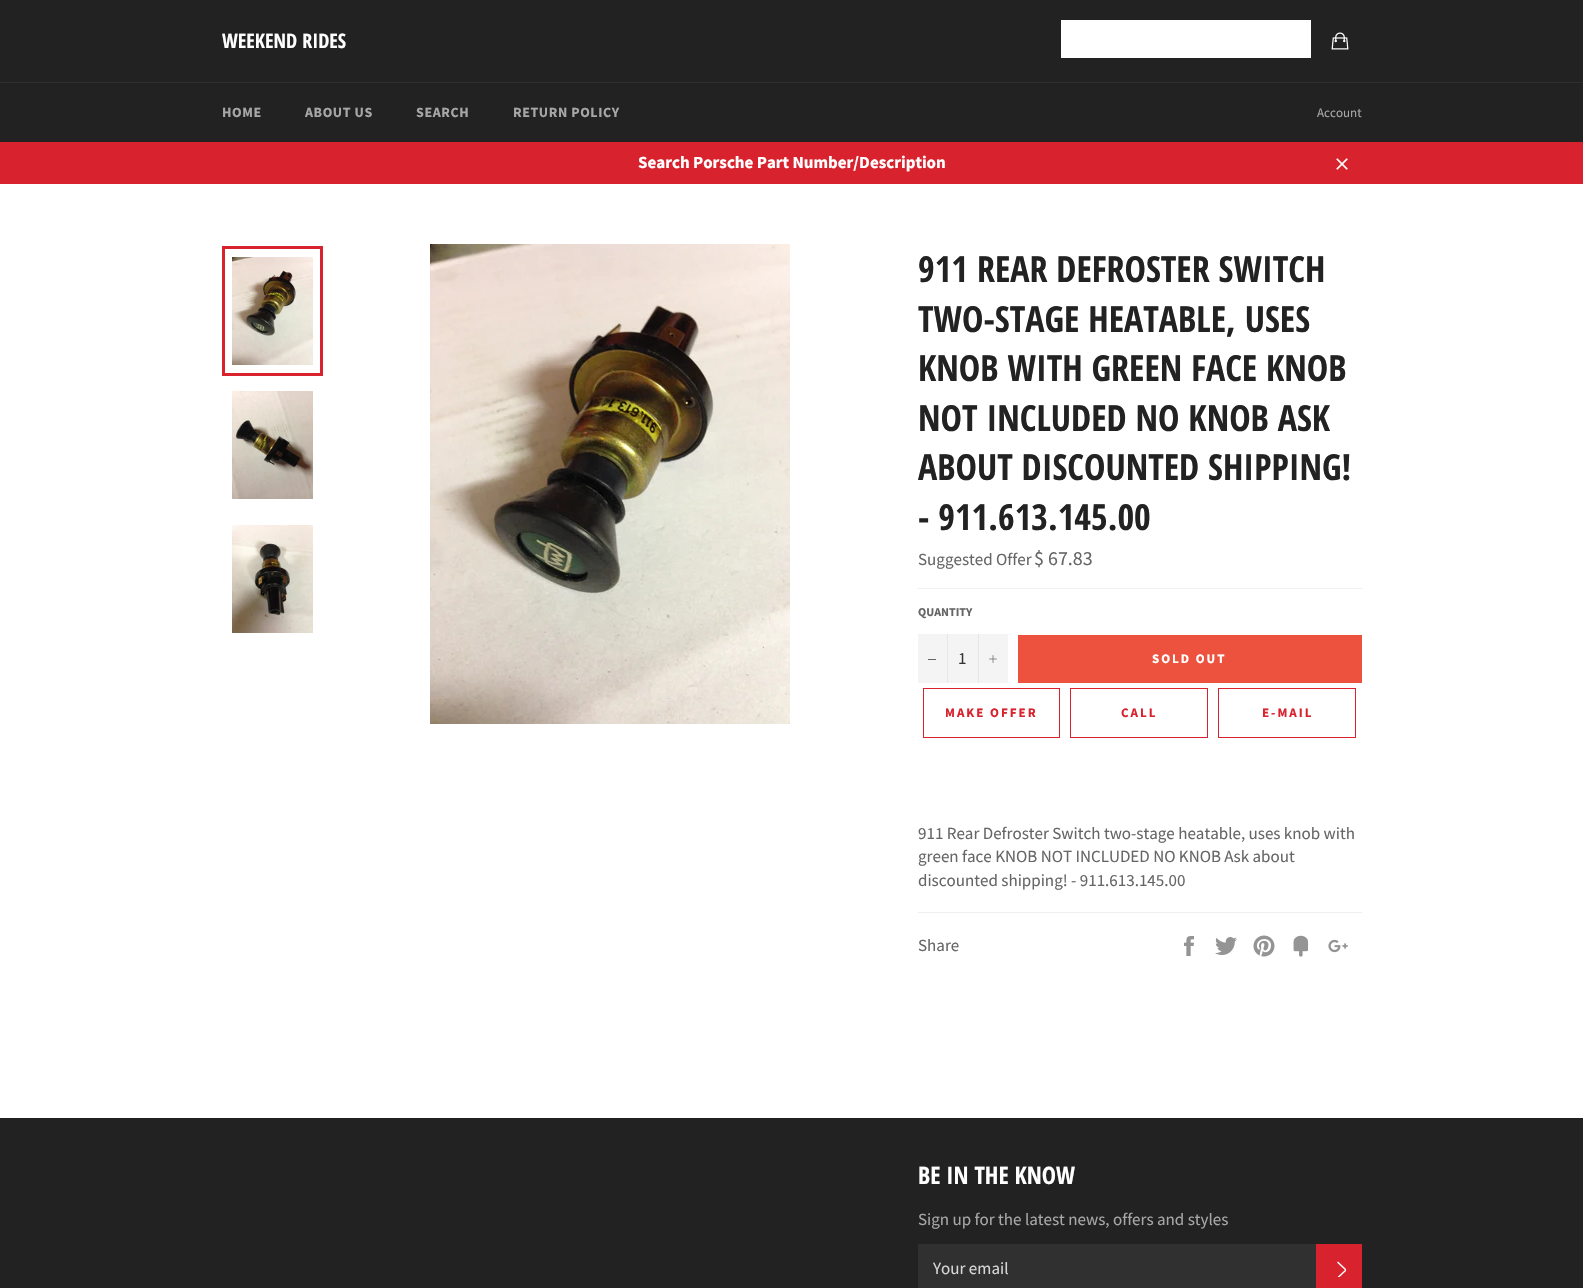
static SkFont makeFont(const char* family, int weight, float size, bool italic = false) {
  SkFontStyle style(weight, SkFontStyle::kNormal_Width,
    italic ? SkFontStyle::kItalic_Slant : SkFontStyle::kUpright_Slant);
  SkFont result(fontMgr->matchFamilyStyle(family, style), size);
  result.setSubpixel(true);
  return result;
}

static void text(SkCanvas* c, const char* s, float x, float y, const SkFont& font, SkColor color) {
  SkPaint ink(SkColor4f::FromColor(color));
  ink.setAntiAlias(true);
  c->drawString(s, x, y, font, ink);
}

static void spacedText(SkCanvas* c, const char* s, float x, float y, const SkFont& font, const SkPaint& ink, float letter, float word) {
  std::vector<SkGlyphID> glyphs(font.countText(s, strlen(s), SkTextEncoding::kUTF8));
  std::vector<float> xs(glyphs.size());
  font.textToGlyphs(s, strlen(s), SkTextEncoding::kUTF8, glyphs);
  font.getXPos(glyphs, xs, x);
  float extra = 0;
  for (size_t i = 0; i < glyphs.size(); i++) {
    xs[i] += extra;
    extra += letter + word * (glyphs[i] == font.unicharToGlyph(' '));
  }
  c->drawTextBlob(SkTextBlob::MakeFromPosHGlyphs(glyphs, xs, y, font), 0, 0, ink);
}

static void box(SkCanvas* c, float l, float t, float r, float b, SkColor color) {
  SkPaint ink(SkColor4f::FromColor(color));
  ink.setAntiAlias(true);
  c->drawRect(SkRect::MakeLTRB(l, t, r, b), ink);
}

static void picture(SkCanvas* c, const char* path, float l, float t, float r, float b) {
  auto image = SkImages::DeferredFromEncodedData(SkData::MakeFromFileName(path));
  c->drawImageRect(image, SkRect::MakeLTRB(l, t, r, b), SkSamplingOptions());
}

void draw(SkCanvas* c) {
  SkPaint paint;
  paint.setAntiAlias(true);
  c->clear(0xffffffff);
  box(c, 0, 0, 1583, 82, 0xff222222);
  SkFont face1 = makeFont("Open Sans Condensed", 700, 20);
  text(c, "WEEKEND RIDES", 222, 48, face1, 0xffffffff);
  box(c, 1061, 20, 1311, 58, 0xffffffff);
  picture(c, "img_01.png", 1331, 32, 1349, 50);
  box(c, 0, 83, 1583, 142, 0xff222222);
  box(c, 0, 82, 1583, 83, 0xff2f2f2f);
  SkFont face2 = makeFont("Source Sans Pro", 700, 14);
  paint.setColor(0xffa7a7a7);
  spacedText(c, "HOME", 222, 117, face2, paint, 0.6f, 0);
  spacedText(c, "ABOUT US", 305, 117, face2, paint, 0.6f, 0);
  spacedText(c, "SEARCH", 416, 117, face2, paint, 0.6f, 0);
  spacedText(c, "RETURN POLICY", 513, 117, face2, paint, 0.6f, 0);
  SkFont face3 = makeFont("Source Sans Pro", 400, 13);
  text(c, "Account", 1317, 117, face3, 0xffa7a7a7);
  box(c, 0, 142, 1583, 184, 0xffd8232f);
  SkFont face4 = makeFont("Source Sans Pro", 700, 17);
  text(c, "Search Porsche Part Number/Description", 638, 168, face4, 0xffffffff);
  picture(c, "img_02.png", 1336, 158, 1348, 170);
  picture(c, "img_03.png", 232, 257, 313, 365);
  paint.setStyle(SkPaint::kStroke_Style);
  paint.setStrokeWidth(3);
  paint.setColor(0xffd8232f);
  c->drawRect(SkRect::MakeLTRB(223.5f, 247.5f, 321.5f, 374.5f), paint);
  picture(c, "img_04.png", 232, 391, 313, 499);
  picture(c, "img_05.png", 232, 525, 313, 633);
  picture(c, "img_06.png", 430, 244, 790, 724);
  SkFont face5 = makeFont("Open Sans Condensed", 700, 36);
  text(c, "911 REAR DEFROSTER SWITCH", 918, 282, face5, 0xff222222);
  text(c, "TWO-STAGE HEATABLE, USES", 918, 332, face5, 0xff222222);
  text(c, "KNOB WITH GREEN FACE KNOB", 918, 381, face5, 0xff222222);
  text(c, "NOT INCLUDED NO KNOB ASK", 918, 431, face5, 0xff222222);
  text(c, "ABOUT DISCOUNTED SHIPPING!", 918, 480, face5, 0xff222222);
  text(c, "- 911.613.145.00", 918, 530, face5, 0xff222222);
  SkFont face6 = makeFont("Source Sans Pro", 400, 17);
  text(c, "Suggested Offer", 918, 565, face6, 0xff666666);
  SkFont face7 = makeFont("Source Sans Pro", 400, 20);
  text(c, "$ 67.83", 1034, 565, face7, 0xff666666);
  box(c, 918, 588, 1362, 589, 0xfff0f0f0);
  SkFont face8 = makeFont("Source Sans Pro", 700, 12);
  text(c, "QUANTITY", 918, 616, face8, 0xff666666);
  box(c, 918, 634, 1008, 683, 0xfff4f4f4);
  box(c, 947, 634, 948, 683, 0xffe7e7e7);
  box(c, 928, 659, 936, 660, 0xff666666);
  text(c, "1", 958, 664, face6, 0xff333333);
  box(c, 978, 634, 979, 683, 0xffe7e7e7);
  picture(c, "img_07.png", 989, 655, 997, 663);
  box(c, 1018, 635, 1362, 683, 0xffec523e);
  SkFont face9 = makeFont("Source Sans Pro", 700, 13);
  paint.setStyle(SkPaint::kFill_Style);
  paint.setColor(0xffffffff);
  spacedText(c, "SOLD OUT", 1152, 663, face9, paint, 2, 0);
  paint.setStyle(SkPaint::kStroke_Style);
  paint.setStrokeWidth(1);
  paint.setColor(0xffd8232f);
  c->drawRect(SkRect::MakeLTRB(923.5f, 688.5f, 1059.5f, 737.5f), paint);
  paint.setStyle(SkPaint::kFill_Style);
  spacedText(c, "MAKE OFFER", 945, 717, face9, paint, 2, 0);
  paint.setStyle(SkPaint::kStroke_Style);
  c->drawRect(SkRect::MakeLTRB(1070.5f, 688.5f, 1207.5f, 737.5f), paint);
  paint.setStyle(SkPaint::kFill_Style);
  spacedText(c, "CALL", 1121, 717, face9, paint, 2, 0);
  paint.setStyle(SkPaint::kStroke_Style);
  c->drawRect(SkRect::MakeLTRB(1218.5f, 688.5f, 1355.5f, 737.5f), paint);
  paint.setStyle(SkPaint::kFill_Style);
  spacedText(c, "E-MAIL", 1262, 717, face9, paint, 2, 0);
  text(c, "911 Rear Defroster Switch two-stage heatable, uses knob with", 918, 839, face6, 0xff666666);
  text(c, "green face KNOB NOT INCLUDED NO KNOB Ask about", 918, 862, face6, 0xff666666);
  text(c, "discounted shipping! - 911.613.145.00", 918, 886, face6, 0xff666666);
  box(c, 918, 912, 1362, 913, 0xfff0f0f0);
  text(c, "Share", 918, 951, face6, 0xff666666);
  picture(c, "img_08.png", 1184, 936, 1194, 956);
  picture(c, "img_09.png", 1215, 937, 1237, 955);
  picture(c, "img_10.png", 1253, 935, 1275, 957);
  picture(c, "img_11.png", 1293, 935, 1309, 957);
  picture(c, "img_12.png", 1328, 939, 1348, 953);
  box(c, 0, 1118, 1583, 1288, 0xff222222);
  SkFont face10 = makeFont("Open Sans Condensed", 700, 24);
  text(c, "BE IN THE KNOW", 918, 1184, face10, 0xffffffff);
  text(c, "Sign up for the latest news, offers and styles", 918, 1225, face6, 0xffa7a7a7);
  box(c, 918, 1244, 1316, 1288, 0xff303030);
  text(c, "Your email", 933, 1274, face6, 0xffd6d6d6);
  box(c, 1316, 1244, 1362, 1288, 0xffd8232f);
  c->save();
  c->clipRect(SkRect::MakeLTRB(1332, 1260, 1346, 1277));
  paint.setColor(0xffffffff);
  c->drawPath(SkPathBuilder().moveTo(1337, 1262.5f).lineTo(1338, 1261.5f).lineTo(1347, 1270).lineTo(1338, 1278.5f).lineTo(1337, 1277.5f).lineTo(1345, 1270).close().detach(), paint);
  c->restore();
}
